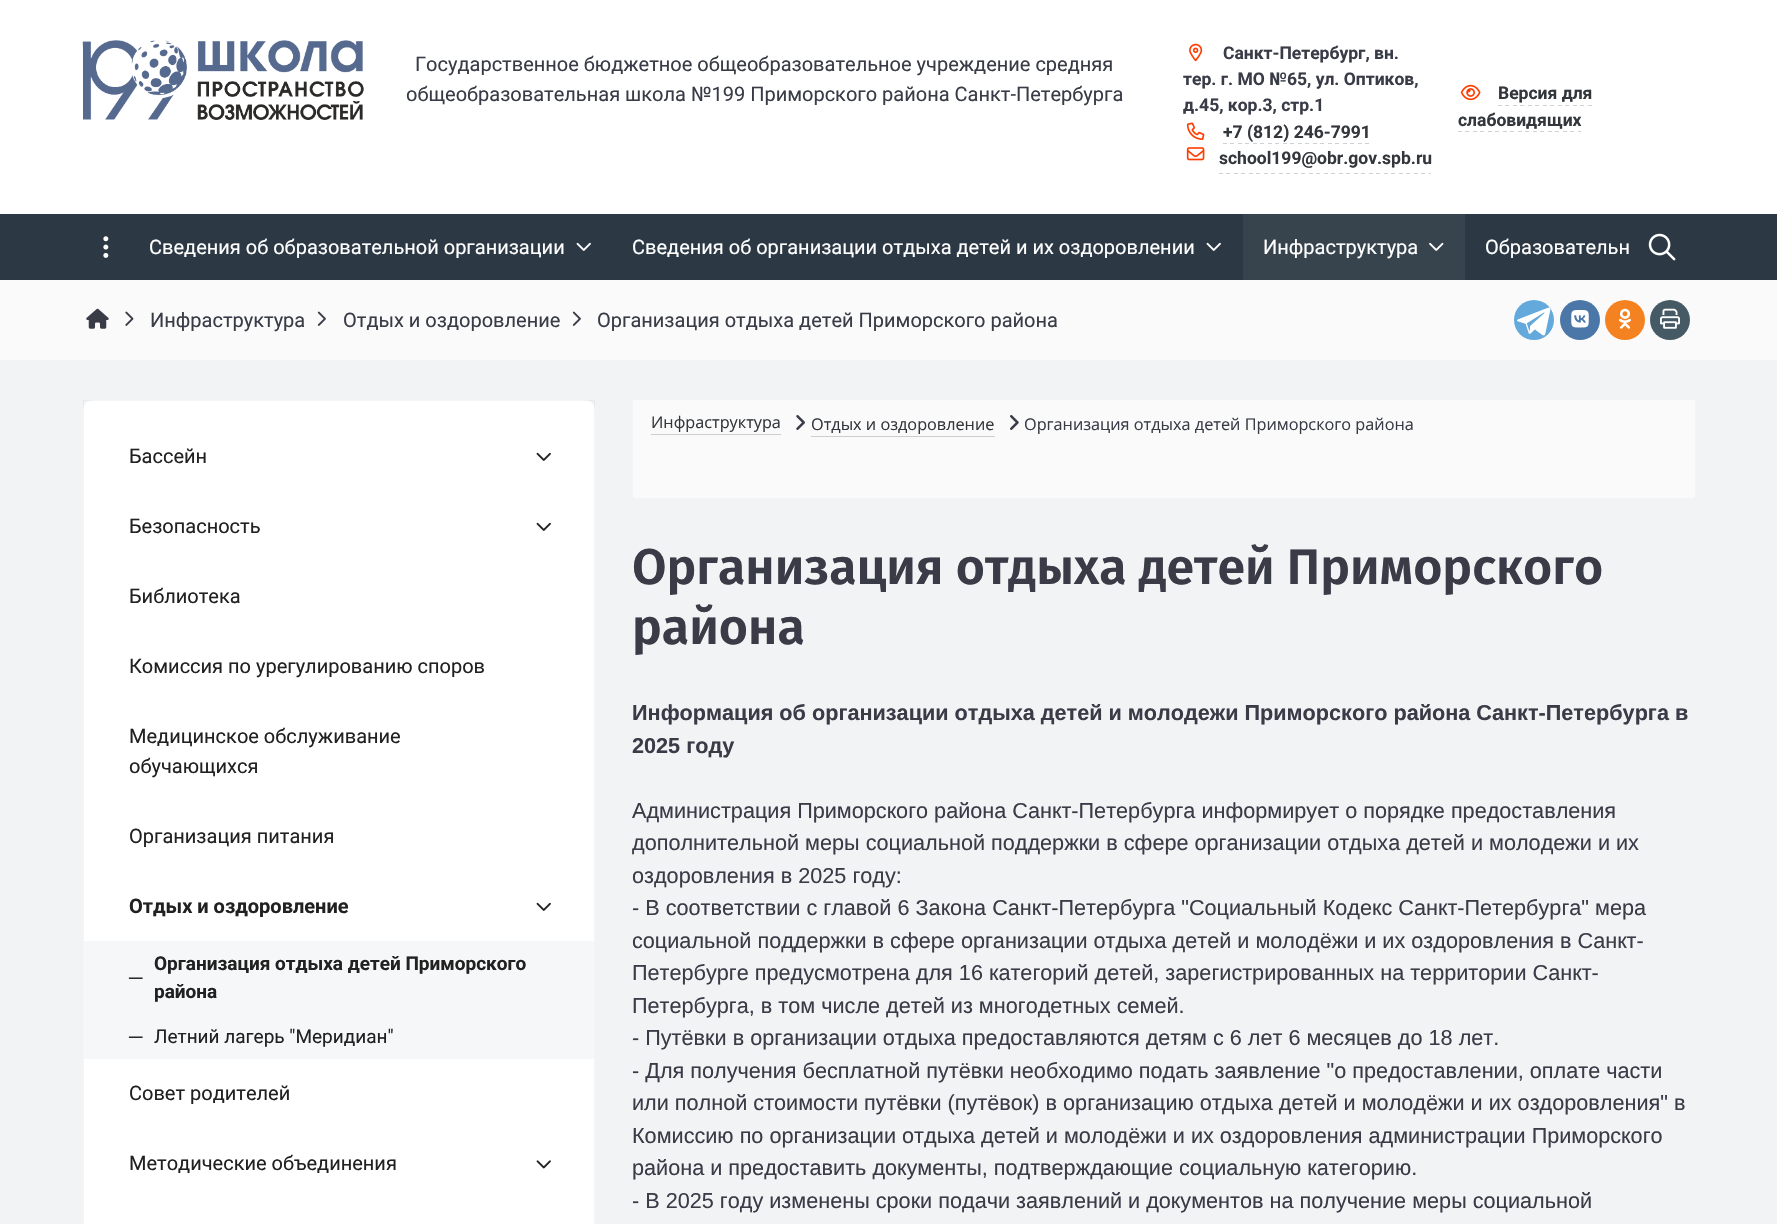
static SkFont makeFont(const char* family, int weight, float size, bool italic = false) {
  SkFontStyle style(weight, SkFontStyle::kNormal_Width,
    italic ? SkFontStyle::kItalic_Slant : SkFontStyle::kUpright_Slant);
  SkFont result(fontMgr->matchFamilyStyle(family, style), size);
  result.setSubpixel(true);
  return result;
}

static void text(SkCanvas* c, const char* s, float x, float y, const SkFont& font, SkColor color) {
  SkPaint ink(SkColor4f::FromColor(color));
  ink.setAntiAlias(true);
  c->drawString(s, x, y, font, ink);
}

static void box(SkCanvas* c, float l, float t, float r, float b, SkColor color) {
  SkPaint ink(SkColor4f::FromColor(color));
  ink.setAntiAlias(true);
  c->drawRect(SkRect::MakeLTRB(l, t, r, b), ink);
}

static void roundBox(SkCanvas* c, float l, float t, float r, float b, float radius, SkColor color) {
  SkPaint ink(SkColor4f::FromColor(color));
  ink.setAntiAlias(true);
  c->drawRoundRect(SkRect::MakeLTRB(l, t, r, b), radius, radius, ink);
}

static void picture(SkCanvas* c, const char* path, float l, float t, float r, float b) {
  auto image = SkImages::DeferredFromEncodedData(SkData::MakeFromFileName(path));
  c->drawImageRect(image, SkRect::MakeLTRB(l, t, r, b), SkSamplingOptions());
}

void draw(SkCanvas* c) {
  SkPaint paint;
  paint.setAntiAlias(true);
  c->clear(0xfff1f3f5);
  box(c, 0, 0, 1777, 214, 0xffffffff);
  picture(c, "img_01.png", 82, 40, 364, 120);
  SkFont face1 = makeFont("Roboto", 400, 20);
  text(c, "Государственное бюджетное общеобразовательное учреждение средняя", 415, 71, face1, 0xff393c47);
  text(c, "общеобразовательная школа №199 Приморского района Санкт-Петербурга", 406, 101, face1, 0xff393c47);
  picture(c, "img_02.png", 1189, 43, 1203, 62);
  SkFont face2 = makeFont("Roboto", 700, 17.5f);
  text(c, "Санкт-Петербург, вн.", 1223, 59, face2, 0xff393c47);
  text(c, "тер. г. МО №65, ул. Оптиков,", 1183, 85, face2, 0xff393c47);
  text(c, "д.45, кор.3, стр.1", 1183, 111, face2, 0xff393c47);
  picture(c, "img_03.png", 1186, 122, 1205, 140);
  text(c, "+7 (812) 246-7991", 1223, 138, face2, 0xff33373b);
  box(c, 1223, 143, 1227, 144, 0xffd0d1d2);
  box(c, 1230, 143, 1234, 144, 0xffd0d1d2);
  box(c, 1238, 143, 1242, 144, 0xffd0d1d2);
  box(c, 1245, 143, 1249, 144, 0xffd0d1d2);
  box(c, 1253, 143, 1257, 144, 0xffd0d1d2);
  box(c, 1260, 143, 1264, 144, 0xffd0d1d2);
  box(c, 1268, 143, 1272, 144, 0xffd0d1d2);
  box(c, 1275, 143, 1279, 144, 0xffd0d1d2);
  box(c, 1283, 143, 1287, 144, 0xffd0d1d2);
  box(c, 1290, 143, 1294, 144, 0xffd0d1d2);
  box(c, 1298, 143, 1302, 144, 0xffd0d1d2);
  box(c, 1305, 143, 1309, 144, 0xffd0d1d2);
  box(c, 1313, 143, 1317, 144, 0xffd0d1d2);
  box(c, 1320, 143, 1324, 144, 0xffd0d1d2);
  box(c, 1328, 143, 1332, 144, 0xffd0d1d2);
  box(c, 1335, 143, 1339, 144, 0xffd0d1d2);
  box(c, 1343, 143, 1347, 144, 0xffd0d1d2);
  box(c, 1350, 143, 1354, 144, 0xffd0d1d2);
  box(c, 1358, 143, 1362, 144, 0xffd0d1d2);
  box(c, 1365, 143, 1369, 144, 0xffd0d1d2);
  picture(c, "img_04.png", 1186, 147, 1205, 161);
  picture(c, "img_05.png", 1219, 173, 1431, 174);
  text(c, "school199@obr.gov.spb.ru", 1219, 164, face2, 0xff33373b);
  picture(c, "img_06.png", 1460, 84, 1481, 101);
  text(c, "Версия для", 1498, 99, face2, 0xff33373b);
  box(c, 1498, 105, 1502, 106, 0xffd0d1d2);
  box(c, 1505, 105, 1509, 106, 0xffd0d1d2);
  box(c, 1513, 105, 1517, 106, 0xffd0d1d2);
  box(c, 1520, 105, 1524, 106, 0xffd0d1d2);
  box(c, 1528, 105, 1532, 106, 0xffd0d1d2);
  box(c, 1535, 105, 1539, 106, 0xffd0d1d2);
  box(c, 1543, 105, 1547, 106, 0xffd0d1d2);
  box(c, 1550, 105, 1554, 106, 0xffd0d1d2);
  box(c, 1558, 105, 1562, 106, 0xffd0d1d2);
  box(c, 1565, 105, 1569, 106, 0xffd0d1d2);
  box(c, 1573, 105, 1577, 106, 0xffd0d1d2);
  box(c, 1580, 105, 1584, 106, 0xffd0d1d2);
  box(c, 1588, 105, 1592, 106, 0xffd0d1d2);
  text(c, "слабовидящих", 1458, 126, face2, 0xff33373b);
  box(c, 1458, 131, 1462, 132, 0xffd0d1d2);
  box(c, 1465, 131, 1469, 132, 0xffd0d1d2);
  box(c, 1473, 131, 1477, 132, 0xffd0d1d2);
  box(c, 1480, 131, 1484, 132, 0xffd0d1d2);
  box(c, 1488, 131, 1492, 132, 0xffd0d1d2);
  box(c, 1495, 131, 1499, 132, 0xffd0d1d2);
  box(c, 1503, 131, 1507, 132, 0xffd0d1d2);
  box(c, 1510, 131, 1514, 132, 0xffd0d1d2);
  box(c, 1518, 131, 1522, 132, 0xffd0d1d2);
  box(c, 1525, 131, 1529, 132, 0xffd0d1d2);
  box(c, 1533, 131, 1537, 132, 0xffd0d1d2);
  box(c, 1540, 131, 1544, 132, 0xffd0d1d2);
  box(c, 1548, 131, 1552, 132, 0xffd0d1d2);
  box(c, 1555, 131, 1559, 132, 0xffd0d1d2);
  box(c, 1563, 131, 1567, 132, 0xffd0d1d2);
  box(c, 1570, 131, 1574, 132, 0xffd0d1d2);
  box(c, 1578, 131, 1581, 132, 0xffd0d1d2);
  box(c, 0, 214, 1777, 280, 0xff2c3944);
  box(c, 1243, 214, 1465, 280, 0xff37434d);
  picture(c, "img_07.png", 103, 236, 109, 258);
  text(c, "Сведения об образовательной организации", 149, 254, face1, 0xffffffff);
  picture(c, "img_08.png", 576, 242, 591, 251);
  text(c, "Сведения об организации отдыха детей и их оздоровлении", 632, 254, face1, 0xffffffff);
  picture(c, "img_08.png", 1206, 242, 1221, 251);
  text(c, "Инфраструктура", 1263, 254, face1, 0xffffffff);
  picture(c, "img_09.png", 1429, 242, 1444, 251);
  text(c, "Образовательн", 1485, 254, face1, 0xffffffff);
  picture(c, "img_10.png", 1648, 233, 1676, 261);
  box(c, 0, 280, 1777, 360, 0xfffafafa);
  picture(c, "img_11.png", 86, 308, 109, 329);
  picture(c, "img_12.png", 125, 311, 134, 326);
  text(c, "Инфраструктура", 150, 327, face1, 0xff393c47);
  picture(c, "img_13.png", 317, 311, 326, 326);
  text(c, "Отдых и оздоровление", 343, 327, face1, 0xff393c47);
  picture(c, "img_13.png", 572, 311, 581, 326);
  text(c, "Организация отдыха детей Приморского района", 597, 327, face1, 0xff393c47);
  paint.setColor(0xff64a9dc);
  c->drawCircle(1534, 320, 20, paint);
  picture(c, "img_14.png", 1517, 307, 1551, 336);
  paint.setColor(0xff4a76a8);
  c->drawCircle(1580, 320, 20, paint);
  picture(c, "img_15.png", 1571, 310, 1589, 328);
  paint.setColor(0xfff58220);
  c->drawCircle(1625, 320, 20, paint);
  picture(c, "img_16.png", 1619, 308, 1631, 329);
  paint.setColor(0xff455a64);
  c->drawCircle(1670, 320, 20, paint);
  picture(c, "img_17.png", 1660, 308, 1680, 329);
  roundBox(c, 83, 400, 595, 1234, 10, 0xffffffff);
  paint.setStyle(SkPaint::kStroke_Style);
  paint.setStrokeWidth(1);
  paint.setColor(0x0a000000);
  c->drawRect(SkRect::MakeLTRB(83.5f, 400.5f, 594.5f, 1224.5f), paint);
  text(c, "Бассейн", 129, 463, face1, 0xff212121);
  picture(c, "img_18.png", 536, 452, 551, 461);
  text(c, "Безопасность", 129, 533, face1, 0xff212121);
  picture(c, "img_18.png", 536, 522, 551, 531);
  text(c, "Библиотека", 129, 603, face1, 0xff212121);
  text(c, "Комиссия по урегулированию споров", 129, 673, face1, 0xff212121);
  text(c, "Медицинское обслуживание", 129, 743, face1, 0xff212121);
  text(c, "обучающихся", 129, 773, face1, 0xff212121);
  text(c, "Организация питания", 129, 843, face1, 0xff212121);
  SkFont face3 = makeFont("Roboto", 700, 20);
  text(c, "Отдых и оздоровление", 129, 913, face3, 0xff212121);
  picture(c, "img_18.png", 536, 902, 551, 911);
  box(c, 84, 941, 594, 1059, 0xfff6f7f8);
  SkFont face4 = makeFont("Liberation Sans", 700, 19);
  text(c, "─", 129, 984, face4, 0xff212121);
  SkFont face5 = makeFont("Roboto", 700, 19);
  text(c, "Организация отдыха детей Приморского", 154, 970, face5, 0xff212121);
  text(c, "района", 154, 998, face5, 0xff212121);
  SkFont face6 = makeFont("Liberation Sans", 400, 19);
  text(c, "─", 129, 1043, face6, 0xff212121);
  SkFont face7 = makeFont("Roboto", 400, 19);
  text(c, "Летний лагерь \"Меридиан\"", 154, 1043, face7, 0xff212121);
  text(c, "Совет родителей", 129, 1100, face1, 0xff212121);
  text(c, "Методические объединения", 129, 1170, face1, 0xff212121);
  picture(c, "img_19.png", 536, 1160, 551, 1169);
  box(c, 633, 400, 1695, 498, 0xfffafafa);
  SkFont face8 = makeFont("Open Sans", 400, 16.25f);
  text(c, "Инфраструктура", 651, 428, face8, 0xff33373b);
  box(c, 651, 434, 781, 435, 0xffcccdce);
  picture(c, "img_20.png", 796, 415, 805, 430);
  text(c, "Отдых и оздоровление", 811, 430, face8, 0xff33373b);
  box(c, 811, 436, 995, 437, 0xffcccdce);
  picture(c, "img_21.png", 1010, 415, 1019, 430);
  text(c, "Организация отдыха детей Приморского района", 1024, 430, face8, 0xff393c47);
  SkFont face9 = makeFont("Fira Sans", 600, 50);
  text(c, "Организация отдыха детей Приморского", 632, 584, face9, 0xff393c47);
  text(c, "района", 632, 644, face9, 0xff393c47);
  SkFont face10 = makeFont("Liberation Sans", 700, 21.65f);
  text(c, "Информация об организации отдыха детей и молодежи Приморского района Санкт-Петербурга в", 632, 720, face10, 0xff393c47);
  text(c, "2025 году", 632, 753, face10, 0xff393c47);
  SkFont face11 = makeFont("Liberation Sans", 400, 21.65f);
  text(c, "Администрация Приморского района Санкт-Петербурга информирует о порядке предоставления", 632, 818, face11, 0xff393c47);
  text(c, "дополнительной меры социальной поддержки в сфере организации отдыха детей и молодежи и их", 632, 850, face11, 0xff393c47);
  text(c, "оздоровления в 2025 году:", 632, 883, face11, 0xff393c47);
  text(c, "- В соответствии с главой 6 Закона Санкт-Петербурга \"Социальный Кодекс Санкт-Петербурга\" мера", 632, 915, face11, 0xff393c47);
  text(c, "социальной поддержки в сфере организации отдыха детей и молодёжи и их оздоровления в Санкт-", 632, 948, face11, 0xff393c47);
  text(c, "Петербурге предусмотрена для 16 категорий детей, зарегистрированных на территории Санкт-", 632, 980, face11, 0xff393c47);
  text(c, "Петербурга, в том числе детей из многодетных семей.", 632, 1013, face11, 0xff393c47);
  text(c, "- Путёвки в организации отдыха предоставляются детям с 6 лет 6 месяцев до 18 лет.", 632, 1045, face11, 0xff393c47);
  text(c, "- Для получения бесплатной путёвки необходимо подать заявление \"о предоставлении, оплате части", 632, 1078, face11, 0xff393c47);
  text(c, "или полной стоимости путёвки (путёвок) в организацию отдыха детей и молодёжи и их оздоровления\" в", 632, 1110, face11, 0xff393c47);
  text(c, "Комиссию по организации отдыха детей и молодёжи и их оздоровления администрации Приморского", 632, 1143, face11, 0xff393c47);
  text(c, "района и предоставить документы, подтверждающие социальную категорию.", 632, 1175, face11, 0xff393c47);
  text(c, "- В 2025 году изменены сроки подачи заявлений и документов на получение меры социальной", 632, 1208, face11, 0xff393c47);
}
